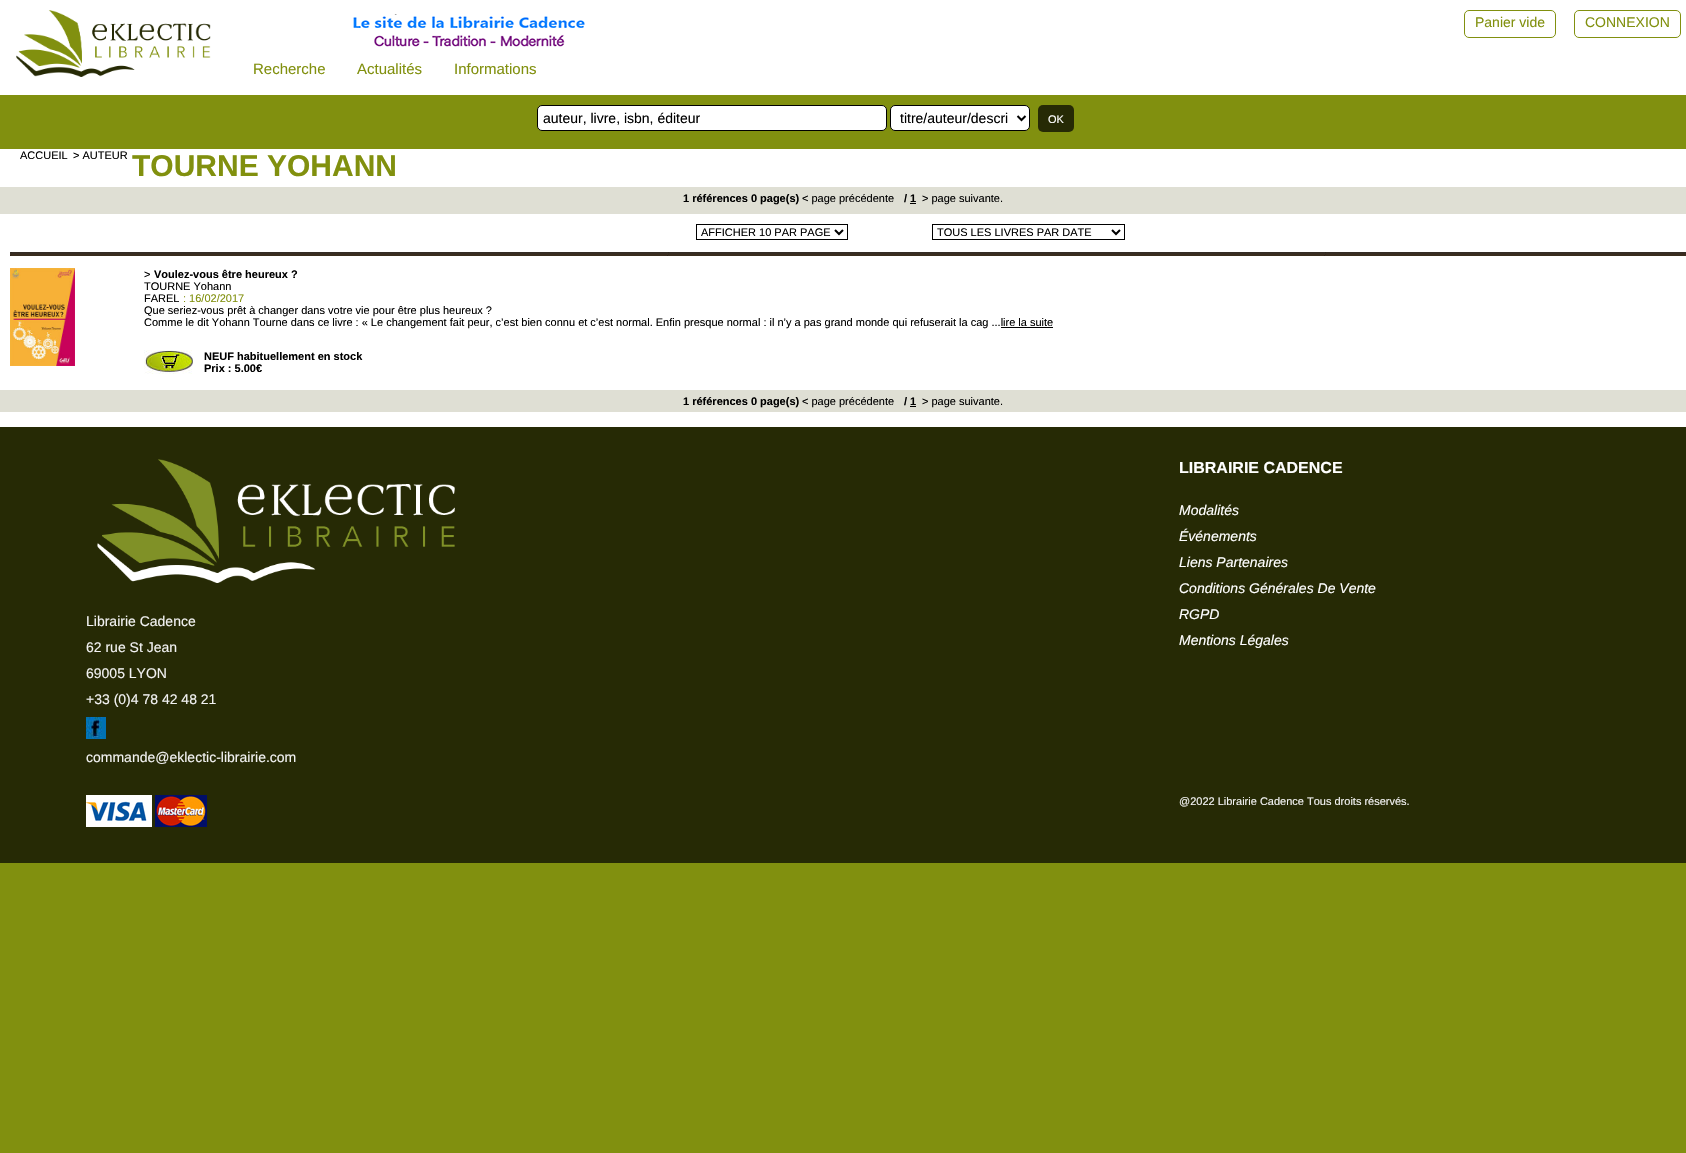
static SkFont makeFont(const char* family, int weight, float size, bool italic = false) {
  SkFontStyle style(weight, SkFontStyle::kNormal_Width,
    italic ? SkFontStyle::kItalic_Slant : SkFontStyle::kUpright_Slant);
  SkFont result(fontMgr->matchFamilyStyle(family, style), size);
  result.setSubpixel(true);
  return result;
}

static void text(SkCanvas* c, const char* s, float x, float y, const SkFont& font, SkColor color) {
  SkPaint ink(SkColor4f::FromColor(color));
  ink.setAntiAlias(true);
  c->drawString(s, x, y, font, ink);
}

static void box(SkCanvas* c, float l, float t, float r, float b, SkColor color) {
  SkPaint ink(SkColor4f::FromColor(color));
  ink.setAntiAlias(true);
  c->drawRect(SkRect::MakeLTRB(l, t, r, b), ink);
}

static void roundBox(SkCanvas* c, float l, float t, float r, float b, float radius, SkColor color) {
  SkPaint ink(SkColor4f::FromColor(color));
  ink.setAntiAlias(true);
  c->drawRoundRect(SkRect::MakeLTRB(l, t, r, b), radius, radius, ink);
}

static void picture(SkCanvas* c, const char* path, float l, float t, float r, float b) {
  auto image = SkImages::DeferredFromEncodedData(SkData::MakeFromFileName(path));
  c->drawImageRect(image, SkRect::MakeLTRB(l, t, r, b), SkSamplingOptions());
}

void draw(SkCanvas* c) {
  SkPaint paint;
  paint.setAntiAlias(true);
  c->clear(0xff81900f);
  box(c, 0, 0, 1686, 95, 0xffffffff);
  picture(c, "img_01.png", 16, 10, 211, 77);
  picture(c, "img_02.png", 353, 14, 585, 47);
  paint.setStyle(SkPaint::kStroke_Style);
  paint.setStrokeWidth(1);
  paint.setColor(0xff81900f);
  c->drawRoundRect(SkRect::MakeLTRB(1464.5f, 10.5f, 1555.5f, 37.5f), 4.5f, 4.5f, paint);
  SkFont face1 = makeFont("Liberation Sans", 400, 14);
  text(c, "Panier vide", 1475, 27, face1, 0xff81900e);
  c->drawRoundRect(SkRect::MakeLTRB(1574.5f, 10.5f, 1680.5f, 37.5f), 4.5f, 4.5f, paint);
  text(c, "CONNEXION", 1585, 27, face1, 0xff81900e);
  SkFont face2 = makeFont("Liberation Sans", 400, 15);
  text(c, "Recherche", 253, 74, face2, 0xff81900e);
  text(c, "Actualités", 357, 74, face2, 0xff81900e);
  text(c, "Informations", 454, 74, face2, 0xff81900e);
  paint.setStyle(SkPaint::kFill_Style);
  paint.setColor(0xffffffff);
  c->drawRoundRect(SkRect::MakeLTRB(537.5f, 105.5f, 886.5f, 130.5f), 4.5f, 4.5f, paint);
  paint.setStyle(SkPaint::kStroke_Style);
  paint.setColor(0xff000000);
  c->drawRoundRect(SkRect::MakeLTRB(537.5f, 105.5f, 886.5f, 130.5f), 4.5f, 4.5f, paint);
  text(c, "auteur, livre, isbn, éditeur", 543, 123, face1, 0xff000000);
  paint.setStyle(SkPaint::kFill_Style);
  paint.setColor(0xffffffff);
  c->drawRoundRect(SkRect::MakeLTRB(890.5f, 105.5f, 1029.5f, 130.5f), 4.5f, 4.5f, paint);
  paint.setStyle(SkPaint::kStroke_Style);
  paint.setColor(0xff000000);
  c->drawRoundRect(SkRect::MakeLTRB(890.5f, 105.5f, 1029.5f, 130.5f), 4.5f, 4.5f, paint);
  paint.setStrokeWidth(2);
  c->drawPath(SkPathBuilder().moveTo(1017.5f, 116).lineTo(1021.5f, 120).lineTo(1025.5f, 116).detach(), paint);
  text(c, "titre/auteur/descri", 900, 123, face1, 0xff000000);
  roundBox(c, 1038, 105, 1074, 132, 5, 0xff262a05);
  SkFont face3 = makeFont("Liberation Sans", 400, 11);
  text(c, "OK", 1048, 123, face3, 0xffffffff);
  box(c, 0, 149, 1686, 427, 0xffffffff);
  text(c, "ACCUEIL", 20, 159, face3, 0xff000000);
  text(c, "> AUTEUR", 73, 159, face3, 0xff000000);
  SkFont face4 = makeFont("Liberation Sans", 700, 30);
  text(c, "TOURNE YOHANN", 132, 176, face4, 0xff81900e);
  box(c, 0, 187, 1686, 214, 0xffdfdfd4);
  SkFont face5 = makeFont("Liberation Sans", 700, 11);
  text(c, "1 références 0 page(s)", 683, 202, face5, 0xff000000);
  text(c, "< page précédente", 802, 202, face3, 0xff000000);
  text(c, "/ 1", 904, 202, face5, 0xff000000);
  text(c, "> page suivante.", 922, 202, face3, 0xff000000);
  box(c, 910, 203, 916, 204, 0xff000000);
  paint.setStrokeWidth(1);
  c->drawRect(SkRect::MakeLTRB(696.5f, 224.5f, 847.5f, 239.5f), paint);
  paint.setStrokeWidth(2);
  c->drawPath(SkPathBuilder().moveTo(835, 230).lineTo(839, 234).lineTo(843, 230).detach(), paint);
  text(c, "AFFICHER 10 PAR PAGE", 701, 236, face3, 0xff000000);
  paint.setStrokeWidth(1);
  c->drawRect(SkRect::MakeLTRB(932.5f, 224.5f, 1124.5f, 239.5f), paint);
  paint.setStrokeWidth(2);
  c->drawPath(SkPathBuilder().moveTo(1112, 230).lineTo(1116, 234).lineTo(1120, 230).detach(), paint);
  text(c, "TOUS LES LIVRES PAR DATE", 937, 236, face3, 0xff000000);
  picture(c, "img_03.png", 10, 252, 1686, 256);
  picture(c, "img_04.png", 10, 268, 75, 366);
  text(c, ">", 144, 278, face3, 0xff000000);
  text(c, "Voulez-vous être heureux ?", 154, 278, face5, 0xff000000);
  text(c, "TOURNE Yohann", 144, 290, face3, 0xff000000);
  text(c, "FAREL", 144, 302, face3, 0xff000000);
  text(c, ": 16/02/2017", 183, 302, face3, 0xff81900e);
  text(c, "Que seriez-vous prêt à changer dans votre vie pour être plus heureux ?", 144, 314, face3, 0xff000000);
  text(c, "Comme le dit Yohann Tourne dans ce livre : « Le changement fait peur, c’est bien connu et c’est normal. Enfin presque normal : il n’y a pas grand monde qui refuserait la cag ...lire la suite", 144, 326, face3, 0xff000000);
  box(c, 1001, 327, 1053, 328, 0xff000000);
  picture(c, "img_05.png", 144, 350, 193, 374);
  text(c, "NEUF habituellement en stock", 204, 360, face5, 0xff000000);
  text(c, "Prix : 5.00€", 204, 372, face5, 0xff000000);
  box(c, 0, 390, 1686, 412, 0xffdfdfd4);
  text(c, "1 références 0 page(s)", 683, 405, face5, 0xff000000);
  text(c, "< page précédente", 802, 405, face3, 0xff000000);
  text(c, "/ 1", 904, 405, face5, 0xff000000);
  text(c, "> page suivante.", 922, 405, face3, 0xff000000);
  box(c, 910, 406, 916, 407, 0xff000000);
  box(c, 0, 427, 1686, 863, 0xff262a05);
  SkFont face6 = makeFont("Liberation Sans", 700, 16);
  text(c, "LIBRAIRIE CADENCE", 1179, 473, face6, 0xffffffff);
  SkFont face7 = makeFont("Liberation Sans", 400, 14, true);
  text(c, "Modalités", 1179, 515, face7, 0xffffffff);
  text(c, "Événements", 1179, 541, face7, 0xffffffff);
  text(c, "Liens Partenaires", 1179, 567, face7, 0xffffffff);
  text(c, "Conditions Générales De Vente", 1179, 593, face7, 0xffffffff);
  text(c, "RGPD", 1179, 619, face7, 0xffffffff);
  text(c, "Mentions Légales", 1179, 645, face7, 0xffffffff);
  picture(c, "img_06.png", 97, 459, 455, 583);
  text(c, "Librairie Cadence", 86, 626, face1, 0xfff2f2f2);
  text(c, "62 rue St Jean", 86, 652, face1, 0xfff2f2f2);
  text(c, "69005 LYON", 86, 678, face1, 0xfff2f2f2);
  text(c, "+33 (0)4 78 42 48 21", 86, 704, face1, 0xfff2f2f2);
  picture(c, "img_07.png", 86, 717, 106, 739);
  text(c, "commande@eklectic-librairie.com", 86, 762, face1, 0xfff2f2f2);
  picture(c, "img_08.png", 86, 795, 152, 827);
  picture(c, "img_09.png", 155, 795, 207, 827);
  text(c, "@2022 Librairie Cadence Tous droits réservés.", 1179, 805, face3, 0xfff2f2f2);
}
